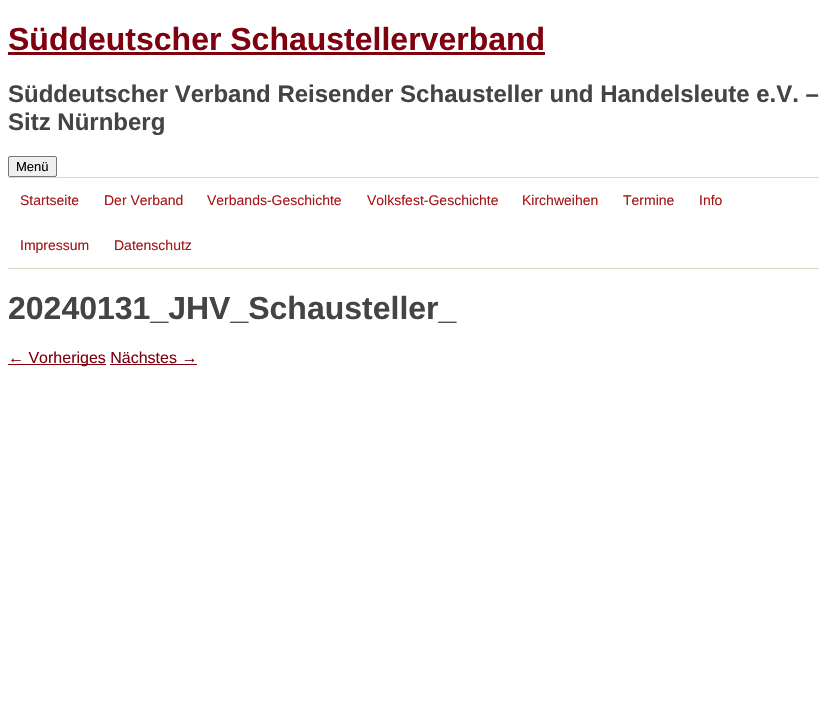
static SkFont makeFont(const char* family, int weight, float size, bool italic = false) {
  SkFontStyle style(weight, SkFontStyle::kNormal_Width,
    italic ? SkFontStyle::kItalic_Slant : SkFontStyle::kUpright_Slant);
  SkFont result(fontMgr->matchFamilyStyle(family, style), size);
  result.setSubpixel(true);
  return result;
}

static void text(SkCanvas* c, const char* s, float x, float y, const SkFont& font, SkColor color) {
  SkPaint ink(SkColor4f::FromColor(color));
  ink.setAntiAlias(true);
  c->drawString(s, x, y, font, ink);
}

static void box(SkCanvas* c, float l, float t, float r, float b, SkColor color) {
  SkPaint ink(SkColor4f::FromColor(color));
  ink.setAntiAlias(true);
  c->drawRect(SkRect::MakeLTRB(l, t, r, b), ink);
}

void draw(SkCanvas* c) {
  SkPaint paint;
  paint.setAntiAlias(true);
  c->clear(0xffffffff);
  SkFont face1 = makeFont("Liberation Sans", 700, 32);
  text(c, "Süddeutscher Schaustellerverband", 8, 50, face1, 0xff7f010f);
  box(c, 8, 52, 545, 55, 0xff7f010f);
  SkFont face2 = makeFont("Liberation Sans", 700, 24);
  text(c, "Süddeutscher Verband Reisender Schausteller und Handelsleute e.V. –", 8, 102, face2, 0xff444444);
  text(c, "Sitz Nürnberg", 8, 130, face2, 0xff444444);
  paint.setColor(0xffefefef);
  c->drawRoundRect(SkRect::MakeLTRB(8.5f, 156.5f, 56.5f, 176.5f), 1.5f, 1.5f, paint);
  paint.setStyle(SkPaint::kStroke_Style);
  paint.setStrokeWidth(1);
  paint.setColor(0xff767676);
  c->drawRoundRect(SkRect::MakeLTRB(8.5f, 156.5f, 56.5f, 176.5f), 1.5f, 1.5f, paint);
  SkFont face3 = makeFont("Liberation Sans", 400, 13);
  text(c, "Menü", 16, 171, face3, 0xff000000);
  box(c, 8, 177, 819, 178, 0xffe1d8c7);
  box(c, 8, 268, 819, 269, 0xffe1d8c7);
  SkFont face4 = makeFont("Liberation Sans", 400, 14);
  text(c, "Startseite", 20, 205, face4, 0xffa41717);
  text(c, "Der Verband", 104, 205, face4, 0xffa41717);
  text(c, "Verbands-Geschichte", 207, 205, face4, 0xffa41717);
  text(c, "Volksfest-Geschichte", 367, 205, face4, 0xffa41717);
  text(c, "Kirchweihen", 522, 205, face4, 0xffa41717);
  text(c, "Termine", 623, 205, face4, 0xffa41717);
  text(c, "Info", 699, 205, face4, 0xffa41717);
  text(c, "Impressum", 20, 250, face4, 0xffa41717);
  text(c, "Datenschutz", 114, 250, face4, 0xffa41717);
  text(c, "20240131_JHV_Schausteller_", 8, 319, face1, 0xff444444);
  box(c, 8, 364, 106, 365, 0xff7f010f);
  SkFont face5 = makeFont("Liberation Sans", 400, 16);
  text(c, "← Vorheriges Nächstes →", 8, 363, face5, 0xff7f010f);
  box(c, 110, 364, 197, 365, 0xff7f010f);
}
